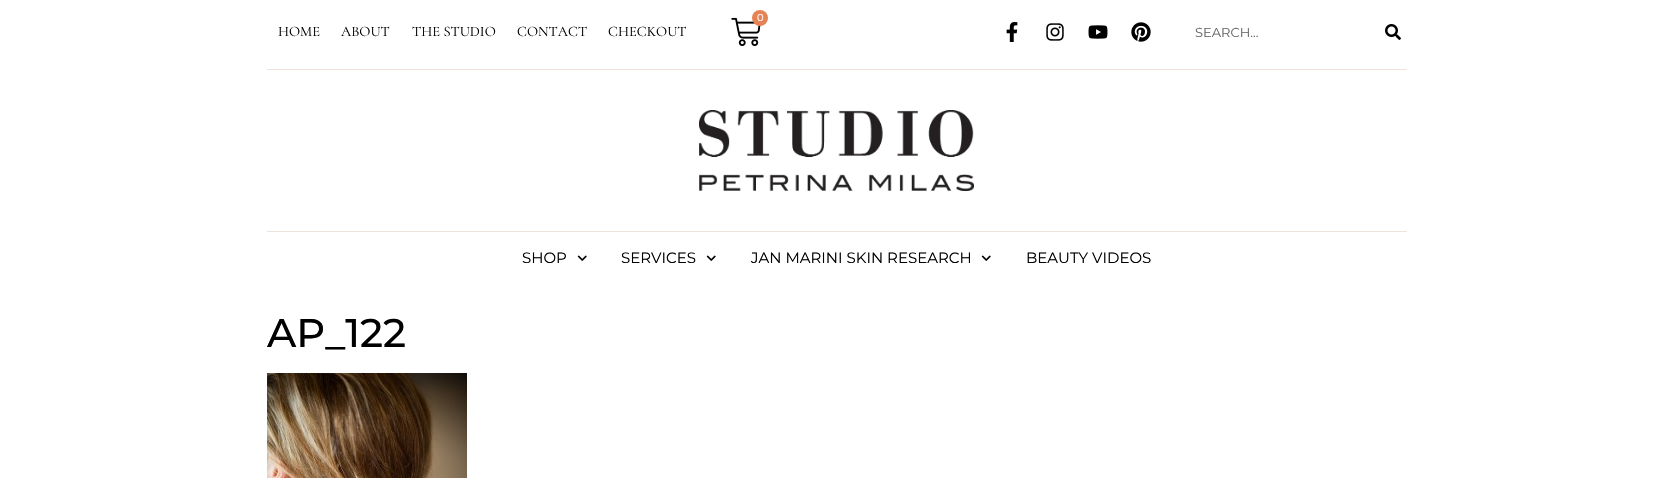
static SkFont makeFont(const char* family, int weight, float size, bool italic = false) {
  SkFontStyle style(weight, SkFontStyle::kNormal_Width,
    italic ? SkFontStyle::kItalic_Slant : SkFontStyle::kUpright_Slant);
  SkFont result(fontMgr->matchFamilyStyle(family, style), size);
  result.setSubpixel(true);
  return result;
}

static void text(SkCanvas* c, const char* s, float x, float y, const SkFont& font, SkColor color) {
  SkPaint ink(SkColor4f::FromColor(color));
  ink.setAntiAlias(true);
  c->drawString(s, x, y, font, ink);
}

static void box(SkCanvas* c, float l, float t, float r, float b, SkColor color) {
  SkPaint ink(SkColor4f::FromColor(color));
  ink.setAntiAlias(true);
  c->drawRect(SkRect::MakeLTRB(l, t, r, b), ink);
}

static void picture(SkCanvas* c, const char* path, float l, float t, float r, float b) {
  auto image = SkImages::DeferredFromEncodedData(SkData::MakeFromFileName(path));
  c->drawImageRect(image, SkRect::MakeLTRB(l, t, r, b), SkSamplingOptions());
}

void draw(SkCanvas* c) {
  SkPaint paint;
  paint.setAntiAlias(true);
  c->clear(0xffffffff);
  picture(c, "img_01.png", 731, 17, 761, 47);
  paint.setColor(0xffe58356);
  c->drawCircle(760, 18, 8, paint);
  SkFont face1 = makeFont("Montserrat", 400, 10);
  text(c, "0", 757, 21, face1, 0xffffffff);
  SkFont face2 = makeFont("Cormorant Garamond", 400, 14.5f);
  text(c, "HOME", 278, 36, face2, 0xff000000);
  text(c, "ABOUT", 341, 36, face2, 0xff000000);
  text(c, "THE STUDIO", 412, 36, face2, 0xff000000);
  text(c, "CONTACT", 517, 36, face2, 0xff000000);
  text(c, "CHECKOUT", 608, 36, face2, 0xff000000);
  picture(c, "img_02.png", 1006, 22, 1018, 42);
  picture(c, "img_03.png", 1046, 23, 1064, 41);
  picture(c, "img_04.png", 1088, 25, 1108, 39);
  picture(c, "img_05.png", 1131, 22, 1151, 42);
  SkFont face3 = makeFont("Montserrat", 400, 13);
  text(c, "SEARCH...", 1195, 37, face3, 0xff666666);
  picture(c, "img_06.png", 1385, 24, 1401, 40);
  box(c, 267, 69, 1407, 70, 0xffefe2dc);
  picture(c, "img_07.png", 699, 110, 974, 191);
  box(c, 267, 231, 1407, 232, 0xffefe2dc);
  SkFont face4 = makeFont("Montserrat", 400, 15);
  text(c, "SHOP", 522, 263, face4, 0xff000000);
  picture(c, "img_08.png", 577, 255, 587, 261);
  text(c, "SERVICES", 621, 263, face4, 0xff000000);
  picture(c, "img_08.png", 706, 255, 716, 261);
  text(c, "JAN MARINI SKIN RESEARCH", 751, 263, face4, 0xff000000);
  picture(c, "img_08.png", 981, 255, 991, 261);
  text(c, "BEAUTY VIDEOS", 1026, 263, face4, 0xff000000);
  SkFont face5 = makeFont("Montserrat", 500, 40);
  text(c, "AP_122", 267, 347, face5, 0xff000000);
  picture(c, "img_09.png", 267, 373, 467, 478);
}
